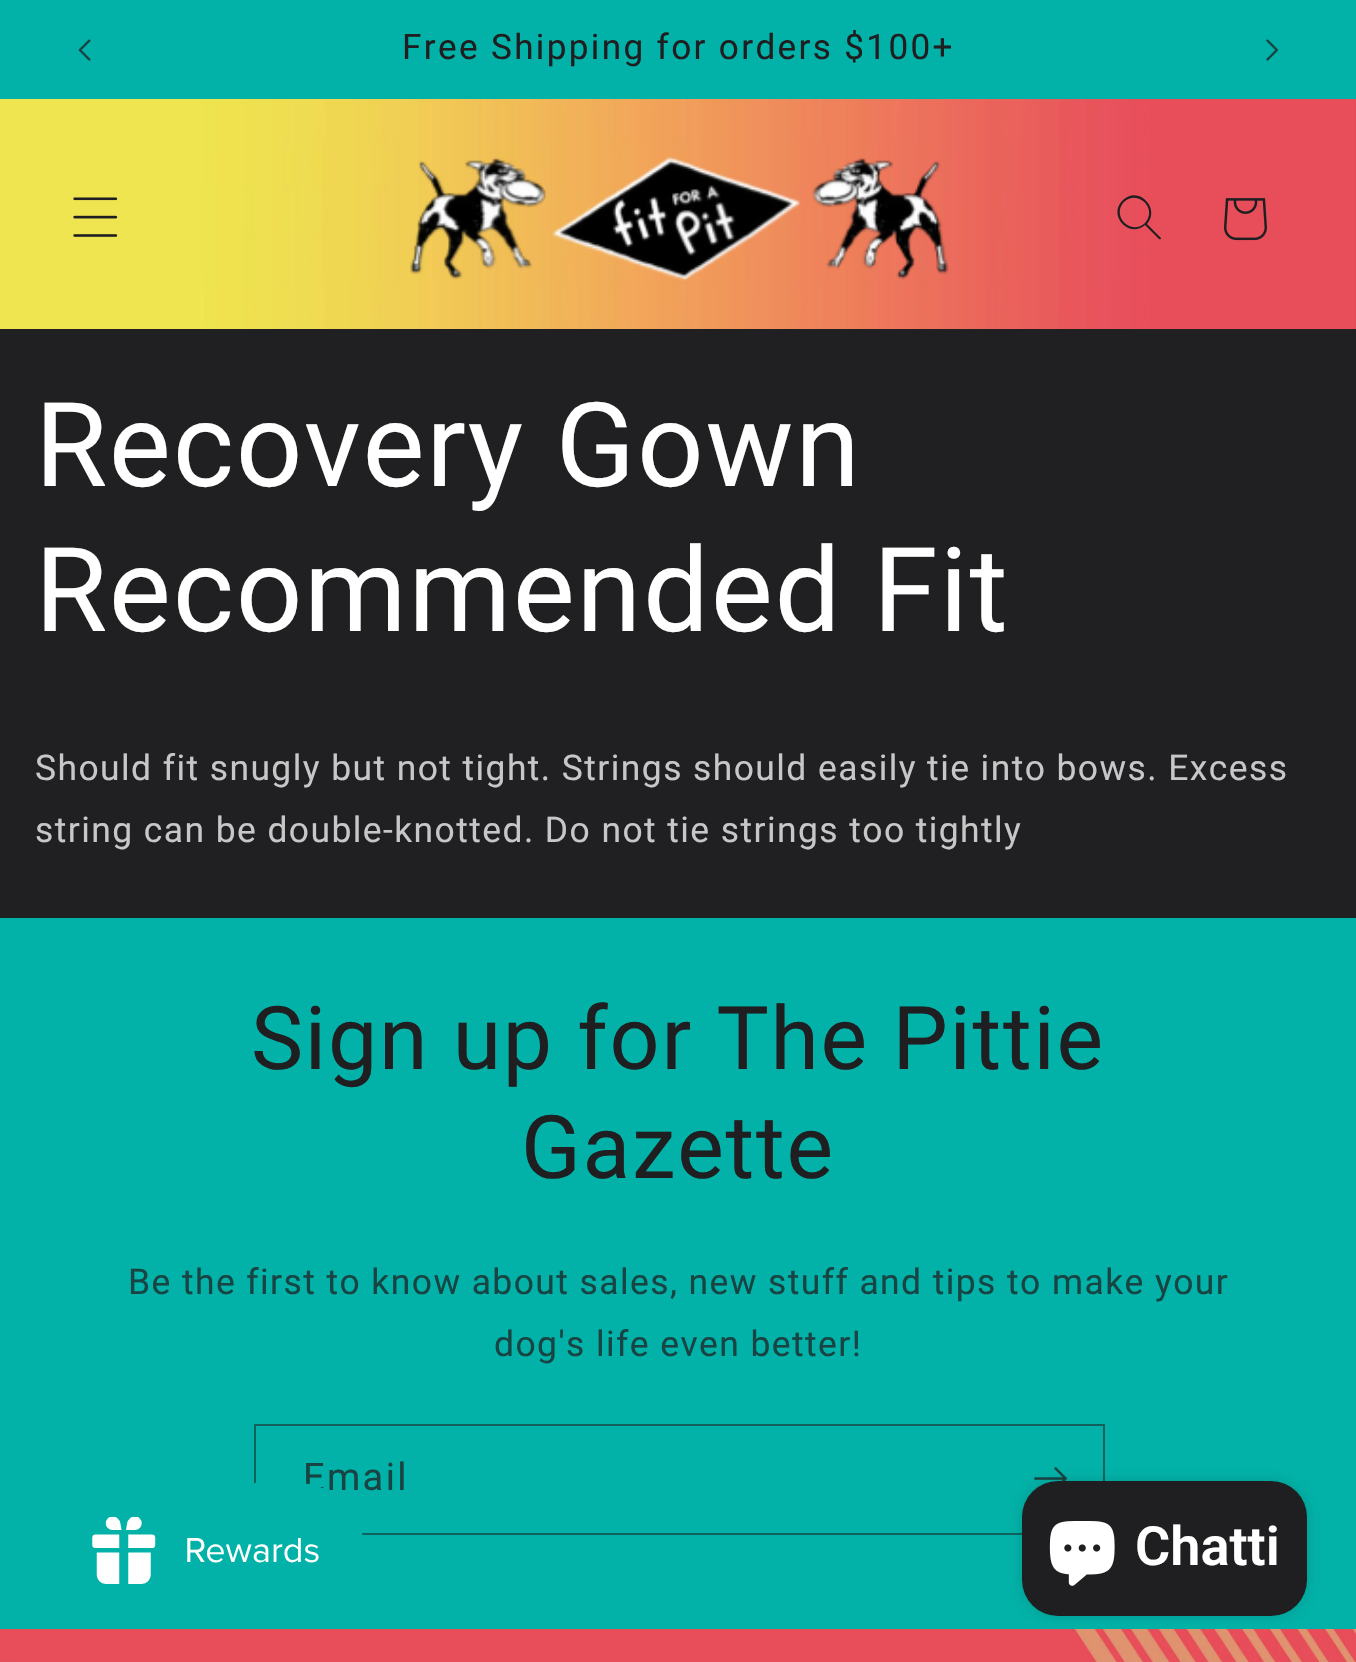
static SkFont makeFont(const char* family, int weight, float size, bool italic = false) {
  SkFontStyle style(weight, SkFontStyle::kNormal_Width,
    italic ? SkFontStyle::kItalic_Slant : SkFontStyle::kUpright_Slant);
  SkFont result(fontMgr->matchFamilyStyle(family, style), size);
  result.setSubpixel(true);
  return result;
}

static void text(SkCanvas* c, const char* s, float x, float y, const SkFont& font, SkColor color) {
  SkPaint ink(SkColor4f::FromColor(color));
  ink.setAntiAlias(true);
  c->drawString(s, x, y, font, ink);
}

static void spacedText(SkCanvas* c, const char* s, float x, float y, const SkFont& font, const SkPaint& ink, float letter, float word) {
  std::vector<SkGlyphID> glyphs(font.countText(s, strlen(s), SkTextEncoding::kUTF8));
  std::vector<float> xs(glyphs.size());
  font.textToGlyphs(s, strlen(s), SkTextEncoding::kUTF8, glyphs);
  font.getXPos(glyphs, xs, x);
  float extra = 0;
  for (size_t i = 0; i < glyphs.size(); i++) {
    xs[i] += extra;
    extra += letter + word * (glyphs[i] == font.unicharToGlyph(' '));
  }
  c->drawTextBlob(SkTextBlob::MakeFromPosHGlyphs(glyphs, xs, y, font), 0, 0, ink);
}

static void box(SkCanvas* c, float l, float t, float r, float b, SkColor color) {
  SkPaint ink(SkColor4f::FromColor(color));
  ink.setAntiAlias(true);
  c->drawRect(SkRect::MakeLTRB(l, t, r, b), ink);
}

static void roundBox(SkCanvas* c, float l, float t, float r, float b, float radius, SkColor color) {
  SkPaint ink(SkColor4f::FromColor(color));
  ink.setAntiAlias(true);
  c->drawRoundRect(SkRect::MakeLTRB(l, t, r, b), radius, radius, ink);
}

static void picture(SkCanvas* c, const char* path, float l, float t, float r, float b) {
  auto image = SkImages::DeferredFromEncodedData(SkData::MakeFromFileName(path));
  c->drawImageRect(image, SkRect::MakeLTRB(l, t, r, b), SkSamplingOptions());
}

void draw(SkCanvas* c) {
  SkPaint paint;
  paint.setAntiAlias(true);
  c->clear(0xff201f21);
  box(c, 0, 0, 1356, 99, 0xff02b1a7);
  picture(c, "img_01.png", 78, 39, 91, 61);
  SkFont face1 = makeFont("Roboto", 400, 35.1f);
  paint.setColor(0xff1f1f21);
  spacedText(c, "Free Shipping for orders $100+", 402, 59, face1, paint, 2.35f, 0);
  picture(c, "img_02.png", 1266, 39, 1278, 61);
  picture(c, "img_03.png", 0, 99, 1356, 329);
  picture(c, "img_04.png", 73, 197, 118, 237);
  picture(c, "img_05.png", 410, 156, 949, 281);
  c->drawPath(SkPathBuilder(SkPathFillType::kEvenOdd).moveTo(1145, 223).cubicTo(1131, 236, 1111, 216, 1124, 202).cubicTo(1138, 189, 1158, 209, 1145, 223).moveTo(1145, 225).cubicTo(1129, 239, 1107, 215, 1123, 200).cubicTo(1138, 185, 1161, 208, 1147, 224).lineTo(1161, 238).cubicTo(1161, 239, 1160, 240, 1159, 239).close().detach(), paint);
  picture(c, "img_06.png", 1224, 198, 1267, 241);
  SkFont face2 = makeFont("Roboto", 400, 117);
  paint.setColor(0xffffffff);
  spacedText(c, "Recovery Gown", 35, 486, face2, paint, 1.75f, 0);
  spacedText(c, "Recommended Fit", 35, 631, face2, paint, 1.75f, 0);
  SkFont face3 = makeFont("Roboto", 400, 35.45f);
  paint.setColor(0xffc7c7c8);
  spacedText(c, "Should fit snugly but not tight. Strings should easily tie into bows. Excess", 35, 780, face3, paint, 1.42f, 0);
  spacedText(c, "string can be double-knotted. Do not tie strings too tightly", 35, 842, face3, paint, 1.42f, 0);
  box(c, 0, 918, 1356, 1629, 0xff02b1a7);
  SkFont face4 = makeFont("Roboto", 400, 87.75f);
  paint.setColor(0xff1f1f21);
  spacedText(c, "Sign up for The Pittie", 251, 1069, face4, paint, 1.75f, 0);
  spacedText(c, "Gazette", 521, 1178, face4, paint, 1.75f, 0);
  paint.setColor(0xff184443);
  spacedText(c, "Be the first to know about sales, new stuff and tips to make your", 128, 1294, face3, paint, 1.42f, 0);
  spacedText(c, "dog's life even better!", 494, 1356, face3, paint, 1.42f, 0);
  paint.setStyle(SkPaint::kStroke_Style);
  paint.setStrokeWidth(2);
  paint.setColor(0xff12615d);
  c->drawRect(SkRect::MakeLTRB(255, 1425, 1104, 1534), paint);
  SkFont face5 = makeFont("Roboto", 400, 38);
  paint.setStyle(SkPaint::kFill_Style);
  paint.setColor(0xff184443);
  spacedText(c, "Email", 303, 1490, face5, paint, 2.35f, 0);
  picture(c, "img_07.png", 1034, 1467, 1067, 1481);
  picture(c, "img_08.png", 92, 1483, 363, 1584);
  picture(c, "img_10.png", 0, 1629, 1356, 1662);
  paint.setColor(0x26000000);
  paint.setMaskFilter(SkMaskFilter::MakeBlur(kNormal_SkBlurStyle, 5.5f));
  c->drawRoundRect(SkRect::MakeLTRB(1022, 1481, 1307, 1616), 36, 36, paint);
  paint.setMaskFilter(nullptr);
  roundBox(c, 1022, 1481, 1307, 1616, 36, 0xff1f1f21);
  picture(c, "img_09.png", 1049, 1521, 1115, 1586);
  SkFont face6 = makeFont("Roboto", 600, 54);
  text(c, "Chatti", 1135, 1565, face6, 0xffffffff);
}
